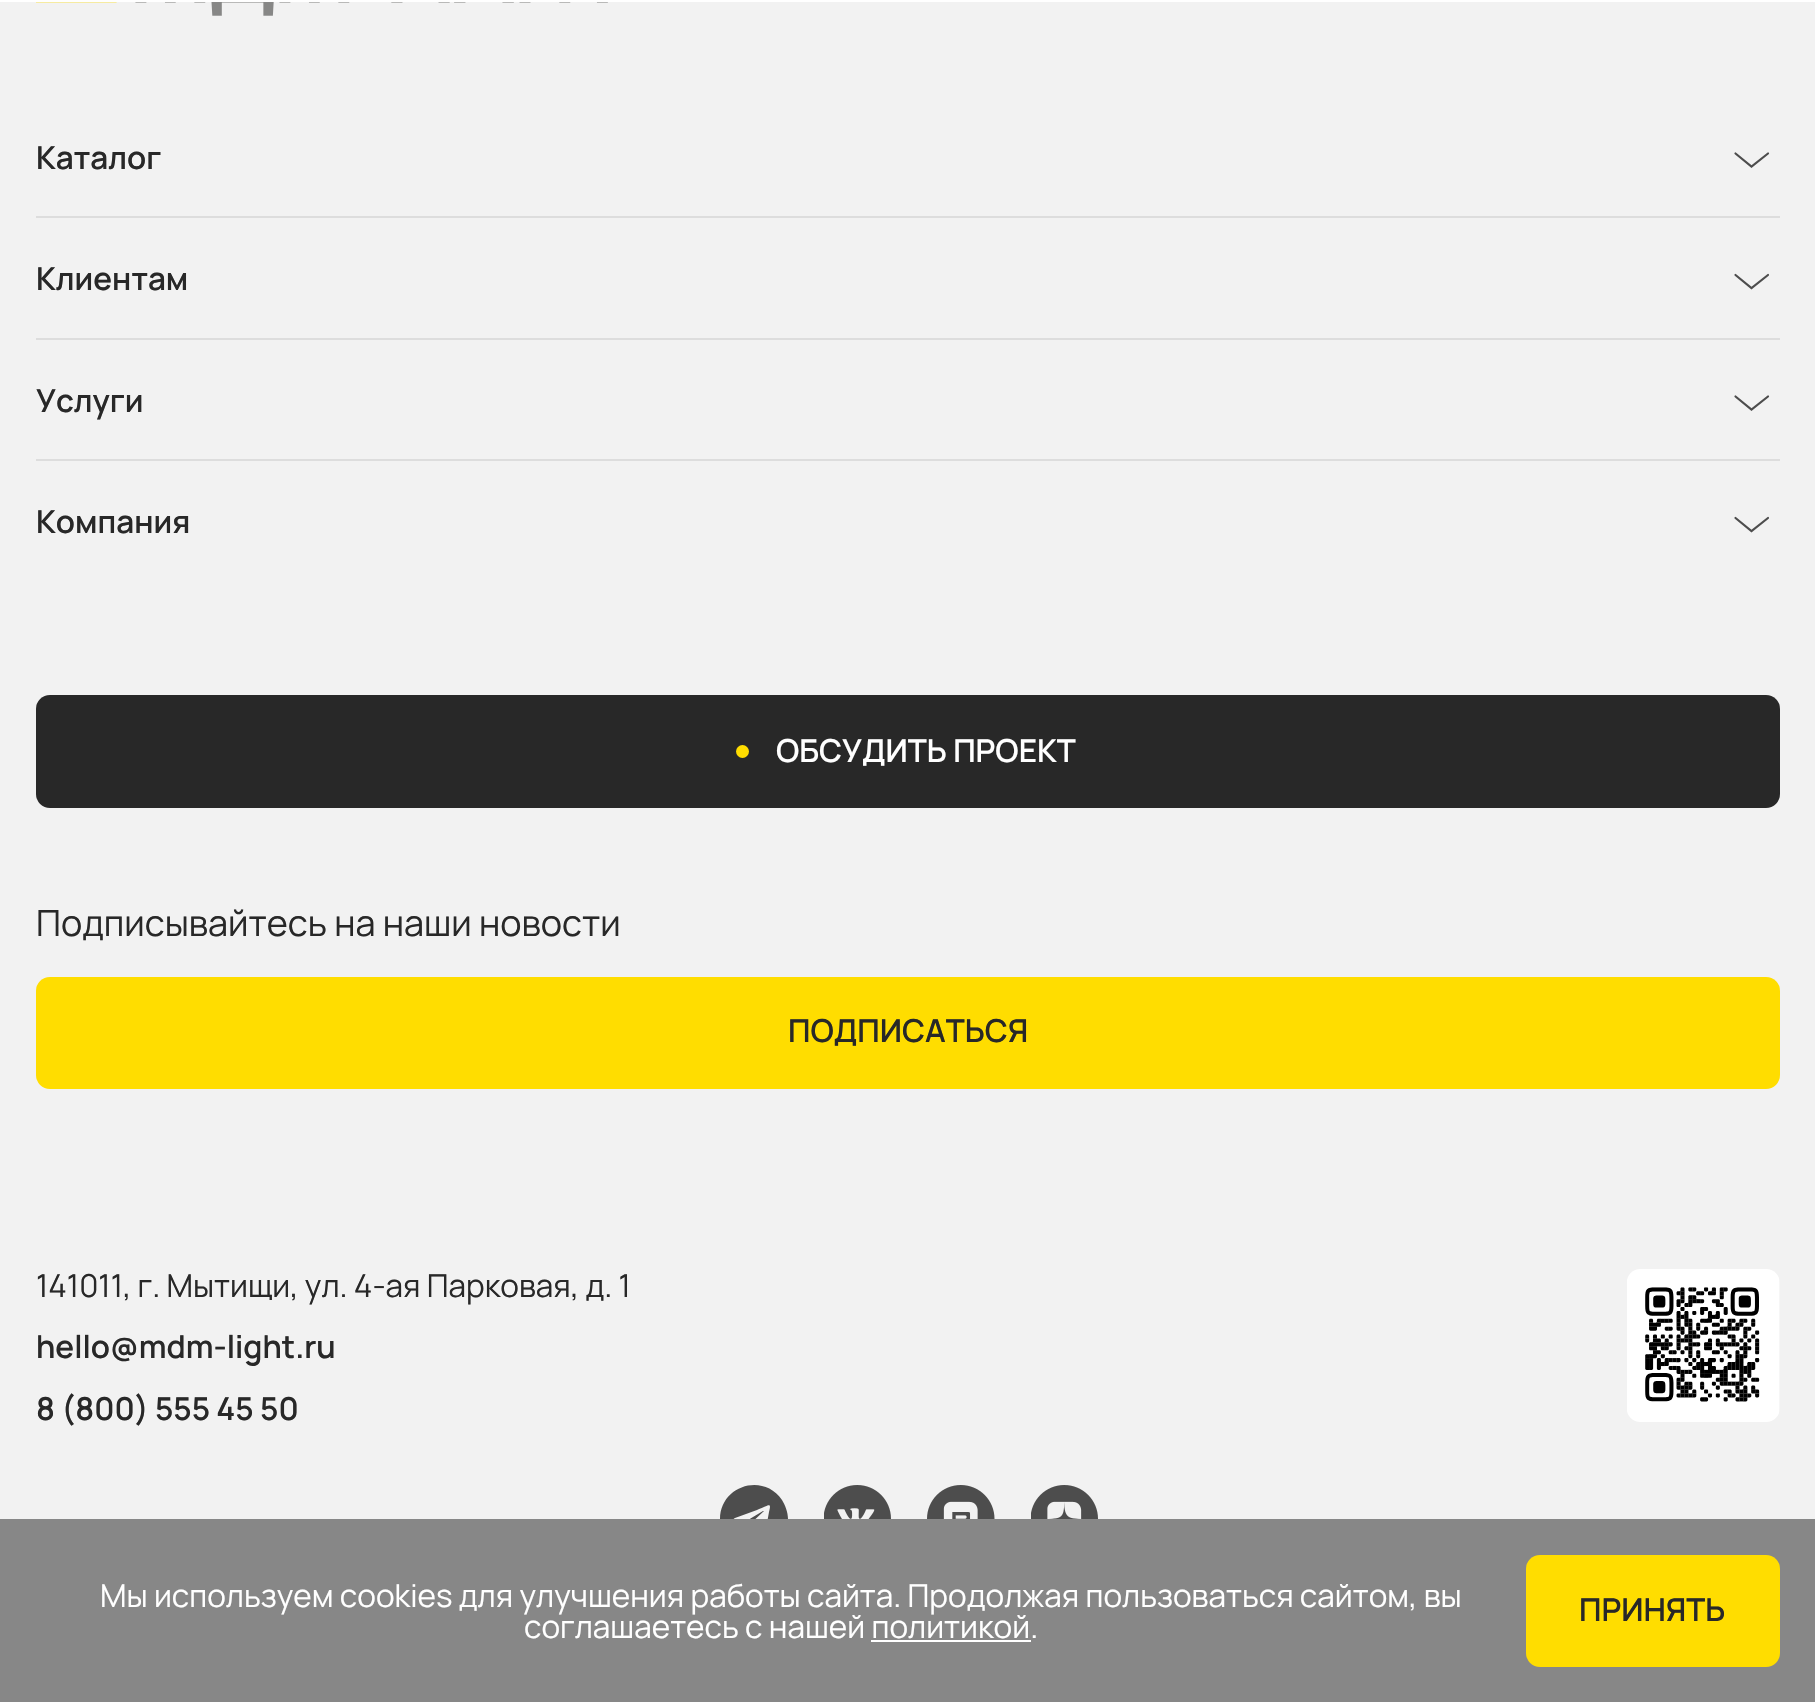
static SkFont makeFont(const char* family, int weight, float size, bool italic = false) {
  SkFontStyle style(weight, SkFontStyle::kNormal_Width,
    italic ? SkFontStyle::kItalic_Slant : SkFontStyle::kUpright_Slant);
  SkFont result(fontMgr->matchFamilyStyle(family, style), size);
  result.setSubpixel(true);
  return result;
}

static void text(SkCanvas* c, const char* s, float x, float y, const SkFont& font, SkColor color) {
  SkPaint ink(SkColor4f::FromColor(color));
  ink.setAntiAlias(true);
  c->drawString(s, x, y, font, ink);
}

static void box(SkCanvas* c, float l, float t, float r, float b, SkColor color) {
  SkPaint ink(SkColor4f::FromColor(color));
  ink.setAntiAlias(true);
  c->drawRect(SkRect::MakeLTRB(l, t, r, b), ink);
}

static void roundBox(SkCanvas* c, float l, float t, float r, float b, float radius, SkColor color) {
  SkPaint ink(SkColor4f::FromColor(color));
  ink.setAntiAlias(true);
  c->drawRoundRect(SkRect::MakeLTRB(l, t, r, b), radius, radius, ink);
}

static void picture(SkCanvas* c, const char* path, float l, float t, float r, float b) {
  auto image = SkImages::DeferredFromEncodedData(SkData::MakeFromFileName(path));
  c->drawImageRect(image, SkRect::MakeLTRB(l, t, r, b), SkSamplingOptions());
}

void draw(SkCanvas* c) {
  SkPaint paint;
  paint.setAntiAlias(true);
  c->clear(0xfff2f2f2);
  box(c, 0, 0, 1815, 2, 0xffffffff);
  picture(c, "img_01.png", 36, 2, 608, 16);
  box(c, 36, 216, 1780, 218, 0xffdddddd);
  SkFont face1 = makeFont("Manrope", 600, 31.5f);
  text(c, "Каталог", 36, 169, face1, 0xff282828);
  paint.setStyle(SkPaint::kStroke_Style);
  paint.setStrokeWidth(2.2f);
  paint.setStrokeCap(SkPaint::kRound_Cap);
  paint.setColor(0xff4d4d4d);
  c->drawPath(SkPathBuilder().moveTo(1735.5f, 153.5f).lineTo(1751.5f, 166.5f).lineTo(1768, 153.5f).detach(), paint);
  box(c, 36, 338, 1780, 340, 0xffdddddd);
  text(c, "Клиентам", 36, 290, face1, 0xff282828);
  c->drawPath(SkPathBuilder().moveTo(1735.5f, 275).lineTo(1751.5f, 288).lineTo(1768, 275).detach(), paint);
  box(c, 36, 459, 1780, 461, 0xffdddddd);
  text(c, "Услуги", 36, 412, face1, 0xff282828);
  c->drawPath(SkPathBuilder().moveTo(1735.5f, 396.5f).lineTo(1751.5f, 409.5f).lineTo(1768, 396.5f).detach(), paint);
  text(c, "Компания", 36, 533, face1, 0xff282828);
  c->drawPath(SkPathBuilder().moveTo(1735.5f, 518).lineTo(1751.5f, 531).lineTo(1768, 518).detach(), paint);
  roundBox(c, 36, 695, 1780, 808, 14, 0xff282828);
  paint.setStyle(SkPaint::kFill_Style);
  paint.setColor(0xffffdd00);
  c->drawCircle(742.5f, 751.5f, 6.5f, paint);
  text(c, "ОБСУДИТЬ ПРОЕКТ", 776, 762, face1, 0xffffffff);
  SkFont face2 = makeFont("Manrope", 400, 36);
  text(c, "Подписывайтесь на наши новости", 36, 936, face2, 0xff282828);
  roundBox(c, 36, 977, 1780, 1089, 14, 0xffffdd00);
  text(c, "ПОДПИСАТЬСЯ", 788, 1042, face1, 0xff282828);
  SkFont face3 = makeFont("Manrope", 400, 31.5f);
  text(c, "141011, г. Мытищи, ул. 4-ая Парковая, д. 1", 36, 1297, face3, 0xff282828);
  text(c, "hello@mdm-light.ru", 36, 1358, face1, 0xff282828);
  text(c, "8 (800) 555 45 50", 36, 1420, face1, 0xff282828);
  paint.setColor(0xff4d4d4d);
  c->drawPath(SkPathBuilder().moveTo(765, 1534).lineTo(769, 1512).cubicTo(772, 1501, 768, 1506, 757, 1510).lineTo(735, 1518).cubicTo(729, 1521, 743, 1523, 743, 1523).lineTo(763, 1511).cubicTo(763, 1511, 765, 1511, 764, 1511).lineTo(748, 1526).lineTo(748, 1534).cubicTo(750, 1534, 752, 1531, 753, 1529).lineTo(762, 1536).cubicTo(763, 1537, 764, 1536, 765, 1534).close().moveTo(788, 1519).cubicTo(788, 1525, 785, 1532, 782, 1538).cubicTo(763, 1565, 720, 1552, 720, 1519).cubicTo(720, 1486, 763, 1472, 782, 1500).cubicTo(785, 1505, 788, 1512, 788, 1519).close().detach(), paint);
  picture(c, "img_02.png", 824, 1485, 891, 1519);
  picture(c, "img_03.png", 927, 1485, 995, 1519);
  picture(c, "img_04.png", 1031, 1485, 1098, 1519);
  picture(c, "img_05.png", 1627, 1269, 1780, 1422);
  box(c, 0, 1519, 1815, 1702, 0xff878787);
  text(c, "Мы используем cookies для улучшения работы сайта. Продолжая пользоваться сайтом, вы", 100, 1607, face3, 0xffffffff);
  text(c, "соглашаетесь с нашей политикой.", 524, 1638, face3, 0xffffffff);
  box(c, 871, 1640, 1031, 1642, 0xffffffff);
  roundBox(c, 1526, 1555, 1780, 1667, 14, 0xffffdd00);
  text(c, "ПРИНЯТЬ", 1579, 1621, face1, 0xff282828);
}
